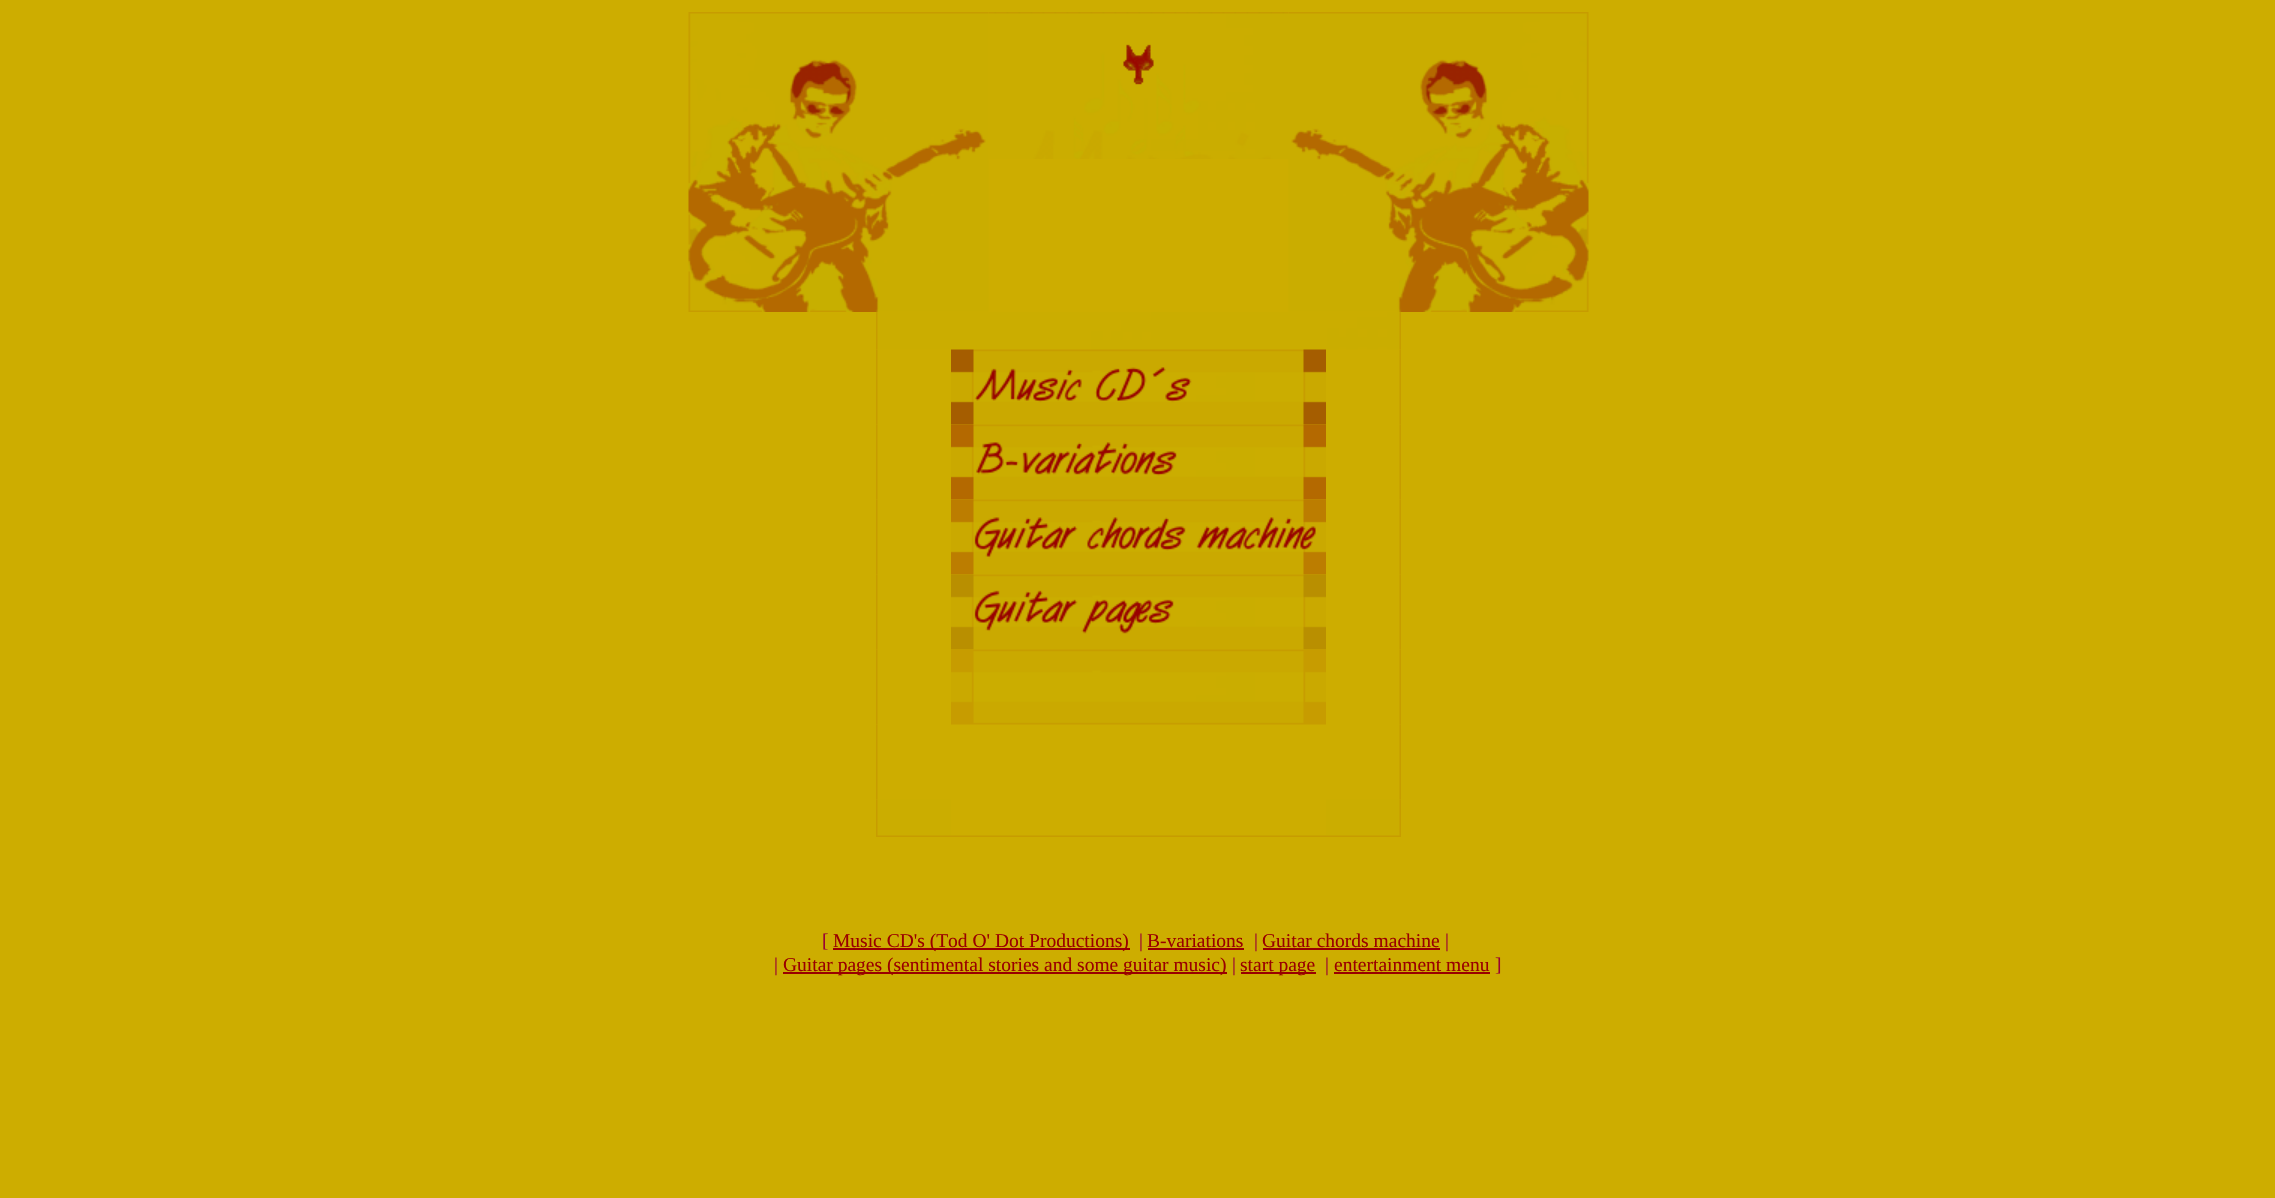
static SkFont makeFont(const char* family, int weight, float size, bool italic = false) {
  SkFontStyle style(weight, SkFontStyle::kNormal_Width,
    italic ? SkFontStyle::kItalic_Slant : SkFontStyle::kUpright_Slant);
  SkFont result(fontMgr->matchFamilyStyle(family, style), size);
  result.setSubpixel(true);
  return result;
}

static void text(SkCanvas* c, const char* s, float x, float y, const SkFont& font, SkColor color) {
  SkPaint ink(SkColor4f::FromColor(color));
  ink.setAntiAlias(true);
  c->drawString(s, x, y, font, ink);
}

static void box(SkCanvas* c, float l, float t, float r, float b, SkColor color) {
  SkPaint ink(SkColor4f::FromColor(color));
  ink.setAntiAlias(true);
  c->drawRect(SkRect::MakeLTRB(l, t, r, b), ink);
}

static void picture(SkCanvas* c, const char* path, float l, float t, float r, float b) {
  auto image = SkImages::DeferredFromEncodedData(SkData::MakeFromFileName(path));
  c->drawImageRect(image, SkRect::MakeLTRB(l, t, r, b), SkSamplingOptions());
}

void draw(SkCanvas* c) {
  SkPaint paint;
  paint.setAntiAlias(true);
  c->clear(0xffcdad00);
  picture(c, "img_01.png", 688, 12, 989, 312);
  picture(c, "img_02.png", 988, 12, 1289, 159);
  picture(c, "img_03.png", 1288, 12, 1589, 312);
  picture(c, "img_04.png", 876, 312, 1401, 350);
  picture(c, "img_05.png", 876, 349, 878, 425);
  picture(c, "img_06.png", 951, 349, 1326, 425);
  picture(c, "img_07.png", 1399, 349, 1401, 425);
  picture(c, "img_05.png", 876, 424, 878, 500);
  picture(c, "img_08.png", 951, 424, 1326, 500);
  picture(c, "img_09.png", 1399, 424, 1401, 500);
  picture(c, "img_05.png", 876, 499, 878, 575);
  picture(c, "img_10.png", 951, 499, 1326, 575);
  picture(c, "img_09.png", 1399, 499, 1401, 575);
  picture(c, "img_05.png", 876, 574, 878, 650);
  picture(c, "img_11.png", 951, 574, 1326, 650);
  picture(c, "img_09.png", 1399, 574, 1401, 650);
  picture(c, "img_05.png", 876, 649, 878, 725);
  picture(c, "img_12.png", 951, 649, 1326, 725);
  picture(c, "img_09.png", 1399, 649, 1401, 725);
  picture(c, "img_05.png", 876, 724, 878, 800);
  picture(c, "img_09.png", 1399, 724, 1401, 800);
  picture(c, "img_13.png", 876, 799, 951, 837);
  picture(c, "img_14.png", 951, 835, 1326, 837);
  picture(c, "img_15.png", 1326, 799, 1401, 837);
  SkFont face1 = makeFont("Liberation Serif", 400, 19.5f);
  text(c, "[", 822, 947, face1, 0xff990033);
  box(c, 833, 948, 1130, 950, 0xff990000);
  text(c, "Music CD's (Tod O' Dot Productions)", 833, 947, face1, 0xff990000);
  text(c, "|", 1139, 947, face1, 0xff990033);
  text(c, "B-variations", 1147, 947, face1, 0xff990000);
  box(c, 1148, 948, 1244, 950, 0xff990000);
  text(c, "|", 1254, 947, face1, 0xff990033);
  text(c, "Guitar chords machine", 1262, 947, face1, 0xff990000);
  box(c, 1263, 948, 1440, 950, 0xff990000);
  text(c, "|", 1445, 947, face1, 0xff990033);
  text(c, "|", 774, 971, face1, 0xff990033);
  box(c, 783, 972, 1227, 974, 0xff990000);
  text(c, "Guitar pages (sentimental stories and some guitar music)", 783, 971, face1, 0xff990000);
  text(c, "|", 1232, 971, face1, 0xff990033);
  box(c, 1241, 972, 1316, 974, 0xff990000);
  text(c, "start page", 1240, 971, face1, 0xff990000);
  text(c, "|", 1325, 971, face1, 0xff990033);
  text(c, "entertainment menu", 1334, 971, face1, 0xff990000);
  box(c, 1334, 972, 1490, 974, 0xff990000);
  text(c, "]", 1495, 971, face1, 0xff990033);
}
